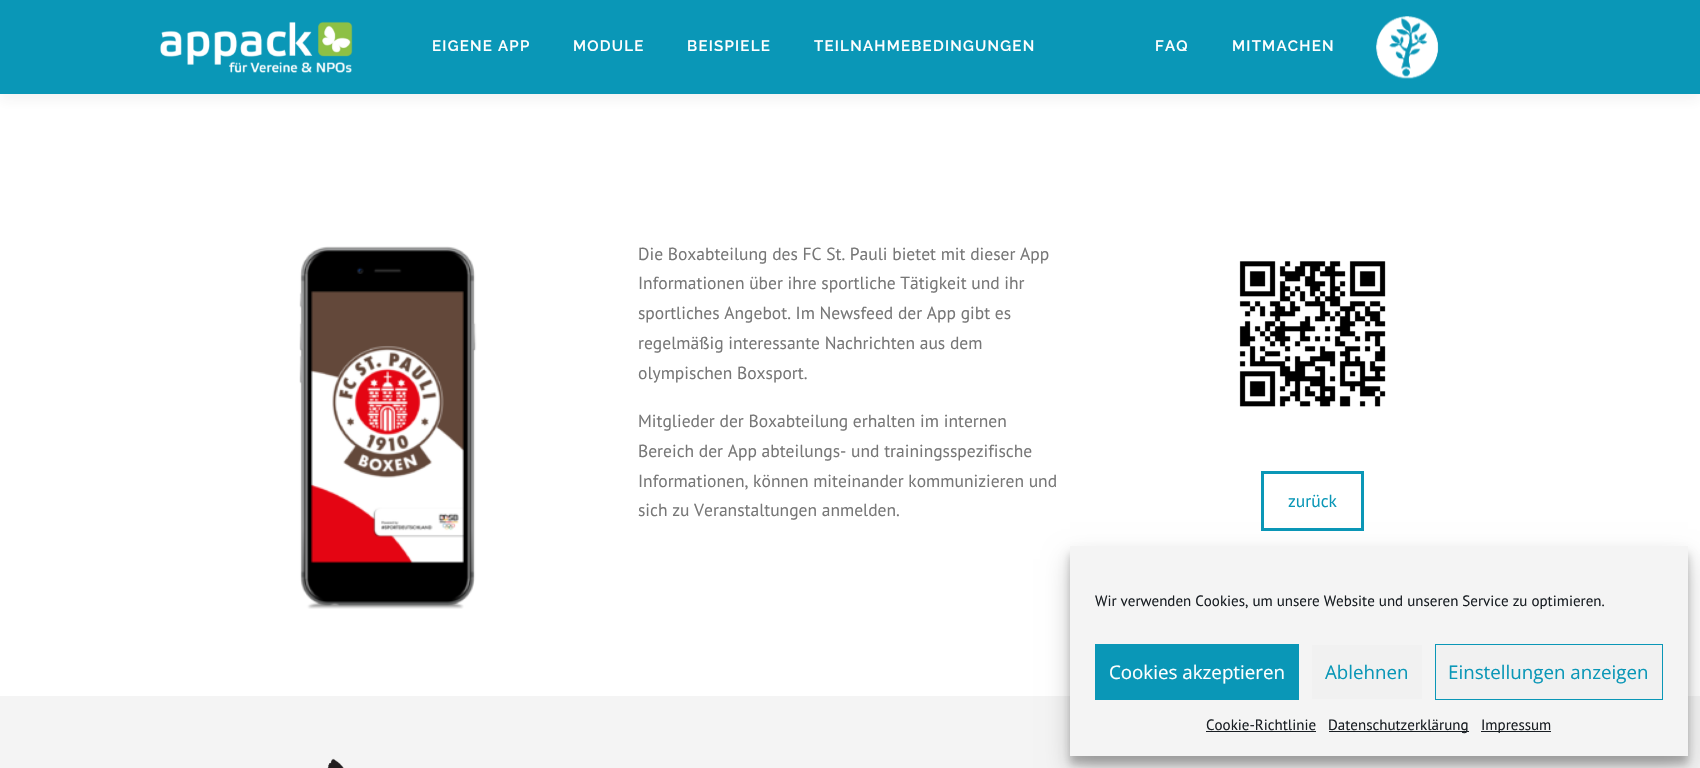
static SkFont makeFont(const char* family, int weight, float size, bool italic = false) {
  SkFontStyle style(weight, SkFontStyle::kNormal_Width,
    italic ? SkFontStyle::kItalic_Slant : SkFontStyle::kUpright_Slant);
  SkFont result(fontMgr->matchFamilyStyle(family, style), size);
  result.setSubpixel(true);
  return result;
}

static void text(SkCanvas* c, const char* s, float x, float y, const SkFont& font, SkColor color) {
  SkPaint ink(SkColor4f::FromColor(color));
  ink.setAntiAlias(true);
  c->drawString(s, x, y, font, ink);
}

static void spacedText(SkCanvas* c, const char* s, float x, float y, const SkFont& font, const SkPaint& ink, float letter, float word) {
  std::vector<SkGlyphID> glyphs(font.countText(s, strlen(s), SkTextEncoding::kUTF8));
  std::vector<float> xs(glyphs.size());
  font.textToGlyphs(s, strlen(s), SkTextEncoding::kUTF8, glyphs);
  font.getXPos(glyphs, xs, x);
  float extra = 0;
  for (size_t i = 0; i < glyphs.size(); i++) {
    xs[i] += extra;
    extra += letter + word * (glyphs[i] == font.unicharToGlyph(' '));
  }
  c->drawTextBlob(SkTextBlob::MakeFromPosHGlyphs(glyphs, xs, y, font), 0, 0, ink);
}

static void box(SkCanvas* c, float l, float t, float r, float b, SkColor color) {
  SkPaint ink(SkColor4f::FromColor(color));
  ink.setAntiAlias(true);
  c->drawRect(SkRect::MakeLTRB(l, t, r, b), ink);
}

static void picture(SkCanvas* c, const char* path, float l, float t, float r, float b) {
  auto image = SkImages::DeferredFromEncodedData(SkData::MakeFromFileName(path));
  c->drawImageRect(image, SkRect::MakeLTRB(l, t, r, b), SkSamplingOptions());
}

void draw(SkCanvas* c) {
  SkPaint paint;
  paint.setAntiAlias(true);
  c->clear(0xffffffff);
  paint.setColor(0x0f323232);
  paint.setMaskFilter(SkMaskFilter::MakeBlur(kNormal_SkBlurStyle, 6));
  c->drawRect(SkRect::MakeLTRB(0, 6, 1700, 100), paint);
  paint.setMaskFilter(nullptr);
  box(c, 0, 0, 1700, 94, 0xff0a97b7);
  picture(c, "img_01.png", 160, 21, 353, 73);
  SkFont face1 = makeFont("Raleway", 600, 15);
  paint.setColor(0xffffffff);
  spacedText(c, "EIGENE APP", 432, 51, face1, paint, 1.25f, 0);
  spacedText(c, "MODULE", 573, 51, face1, paint, 1.25f, 0);
  spacedText(c, "BEISPIELE", 687, 51, face1, paint, 1.25f, 0);
  spacedText(c, "TEILNAHMEBEDINGUNGEN", 814, 51, face1, paint, 1.25f, 0);
  spacedText(c, "FAQ", 1155, 51, face1, paint, 1.25f, 0);
  spacedText(c, "MITMACHEN", 1232, 51, face1, paint, 1.25f, 0);
  picture(c, "img_02.png", 1376, 16, 1439, 79);
  picture(c, "img_03.png", 299, 246, 477, 609);
  SkFont face2 = makeFont("PT Sans", 400, 17.5f);
  text(c, "Die Boxabteilung des FC St. Pauli bietet mit dieser App", 638, 260, face2, 0xff777777);
  text(c, "Informationen über ihre sportliche Tätigkeit und ihr", 638, 289, face2, 0xff777777);
  text(c, "sportliches Angebot. Im Newsfeed der App gibt es", 638, 319, face2, 0xff777777);
  text(c, "regelmäßig interessante Nachrichten aus dem", 638, 349, face2, 0xff777777);
  text(c, "olympischen Boxsport.", 638, 379, face2, 0xff777777);
  text(c, "Mitglieder der Boxabteilung erhalten im internen", 638, 427, face2, 0xff777777);
  text(c, "Bereich der App abteilungs- und trainingsspezifische", 638, 457, face2, 0xff777777);
  text(c, "Informationen, können miteinander kommunizieren und", 638, 487, face2, 0xff777777);
  text(c, "sich zu Veranstaltungen anmelden.", 638, 516, face2, 0xff777777);
  picture(c, "img_04.png", 1239, 261, 1386, 407);
  paint.setStyle(SkPaint::kStroke_Style);
  paint.setStrokeWidth(3);
  paint.setColor(0xff0a97b7);
  c->drawRect(SkRect::MakeLTRB(1262.5f, 472.5f, 1362.5f, 529.5f), paint);
  text(c, "zurück", 1288, 507, face2, 0xff0a97b7);
  box(c, 0, 696, 1700, 768, 0xfff4f4f4);
  picture(c, "img_05.png", 327, 758, 344, 768);
  paint.setStyle(SkPaint::kFill_Style);
  paint.setColor(0x3b000000);
  paint.setMaskFilter(SkMaskFilter::MakeBlur(kNormal_SkBlurStyle, 4));
  c->drawRect(SkRect::MakeLTRB(1070, 554, 1688, 764), paint);
  paint.setMaskFilter(nullptr);
  paint.setColor(0x30000000);
  paint.setMaskFilter(SkMaskFilter::MakeBlur(kNormal_SkBlurStyle, 12.5f));
  c->drawRect(SkRect::MakeLTRB(1070, 559, 1688, 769), paint);
  paint.setMaskFilter(nullptr);
  box(c, 1070, 546, 1688, 756, 0xfff4f4f4);
  SkFont face3 = makeFont("PT Sans", 400, 15);
  text(c, "Wir verwenden Cookies, um unsere Website und unseren Service zu optimieren.", 1095, 606, face3, 0xff191e23);
  box(c, 1095, 644, 1299, 700, 0xff0a97b7);
  SkFont face4 = makeFont("Open Sans", 400, 18.75f);
  text(c, "Cookies akzeptieren", 1109, 679, face4, 0xffffffff);
  box(c, 1312, 645, 1422, 699, 0xfff1f1f1);
  text(c, "Ablehnen", 1325, 679, face4, 0xff0a97b7);
  paint.setColor(0xfff1f1f1);
  c->drawRect(SkRect::MakeLTRB(1435.5f, 644.5f, 1662.5f, 699.5f), paint);
  paint.setStyle(SkPaint::kStroke_Style);
  paint.setStrokeWidth(1);
  paint.setColor(0xff0a97b7);
  c->drawRect(SkRect::MakeLTRB(1435.5f, 644.5f, 1662.5f, 699.5f), paint);
  text(c, "Einstellungen anzeigen", 1448, 679, face4, 0xff0a97b7);
  text(c, "Cookie-Richtlinie", 1206, 730, face3, 0xff191e23);
  box(c, 1206, 731, 1316, 732, 0xff191e23);
  box(c, 1329, 731, 1469, 732, 0xff191e23);
  text(c, "Datenschutzerklärung", 1328, 730, face3, 0xff191e23);
  box(c, 1481, 731, 1551, 732, 0xff191e23);
  text(c, "Impressum", 1481, 730, face3, 0xff191e23);
}
